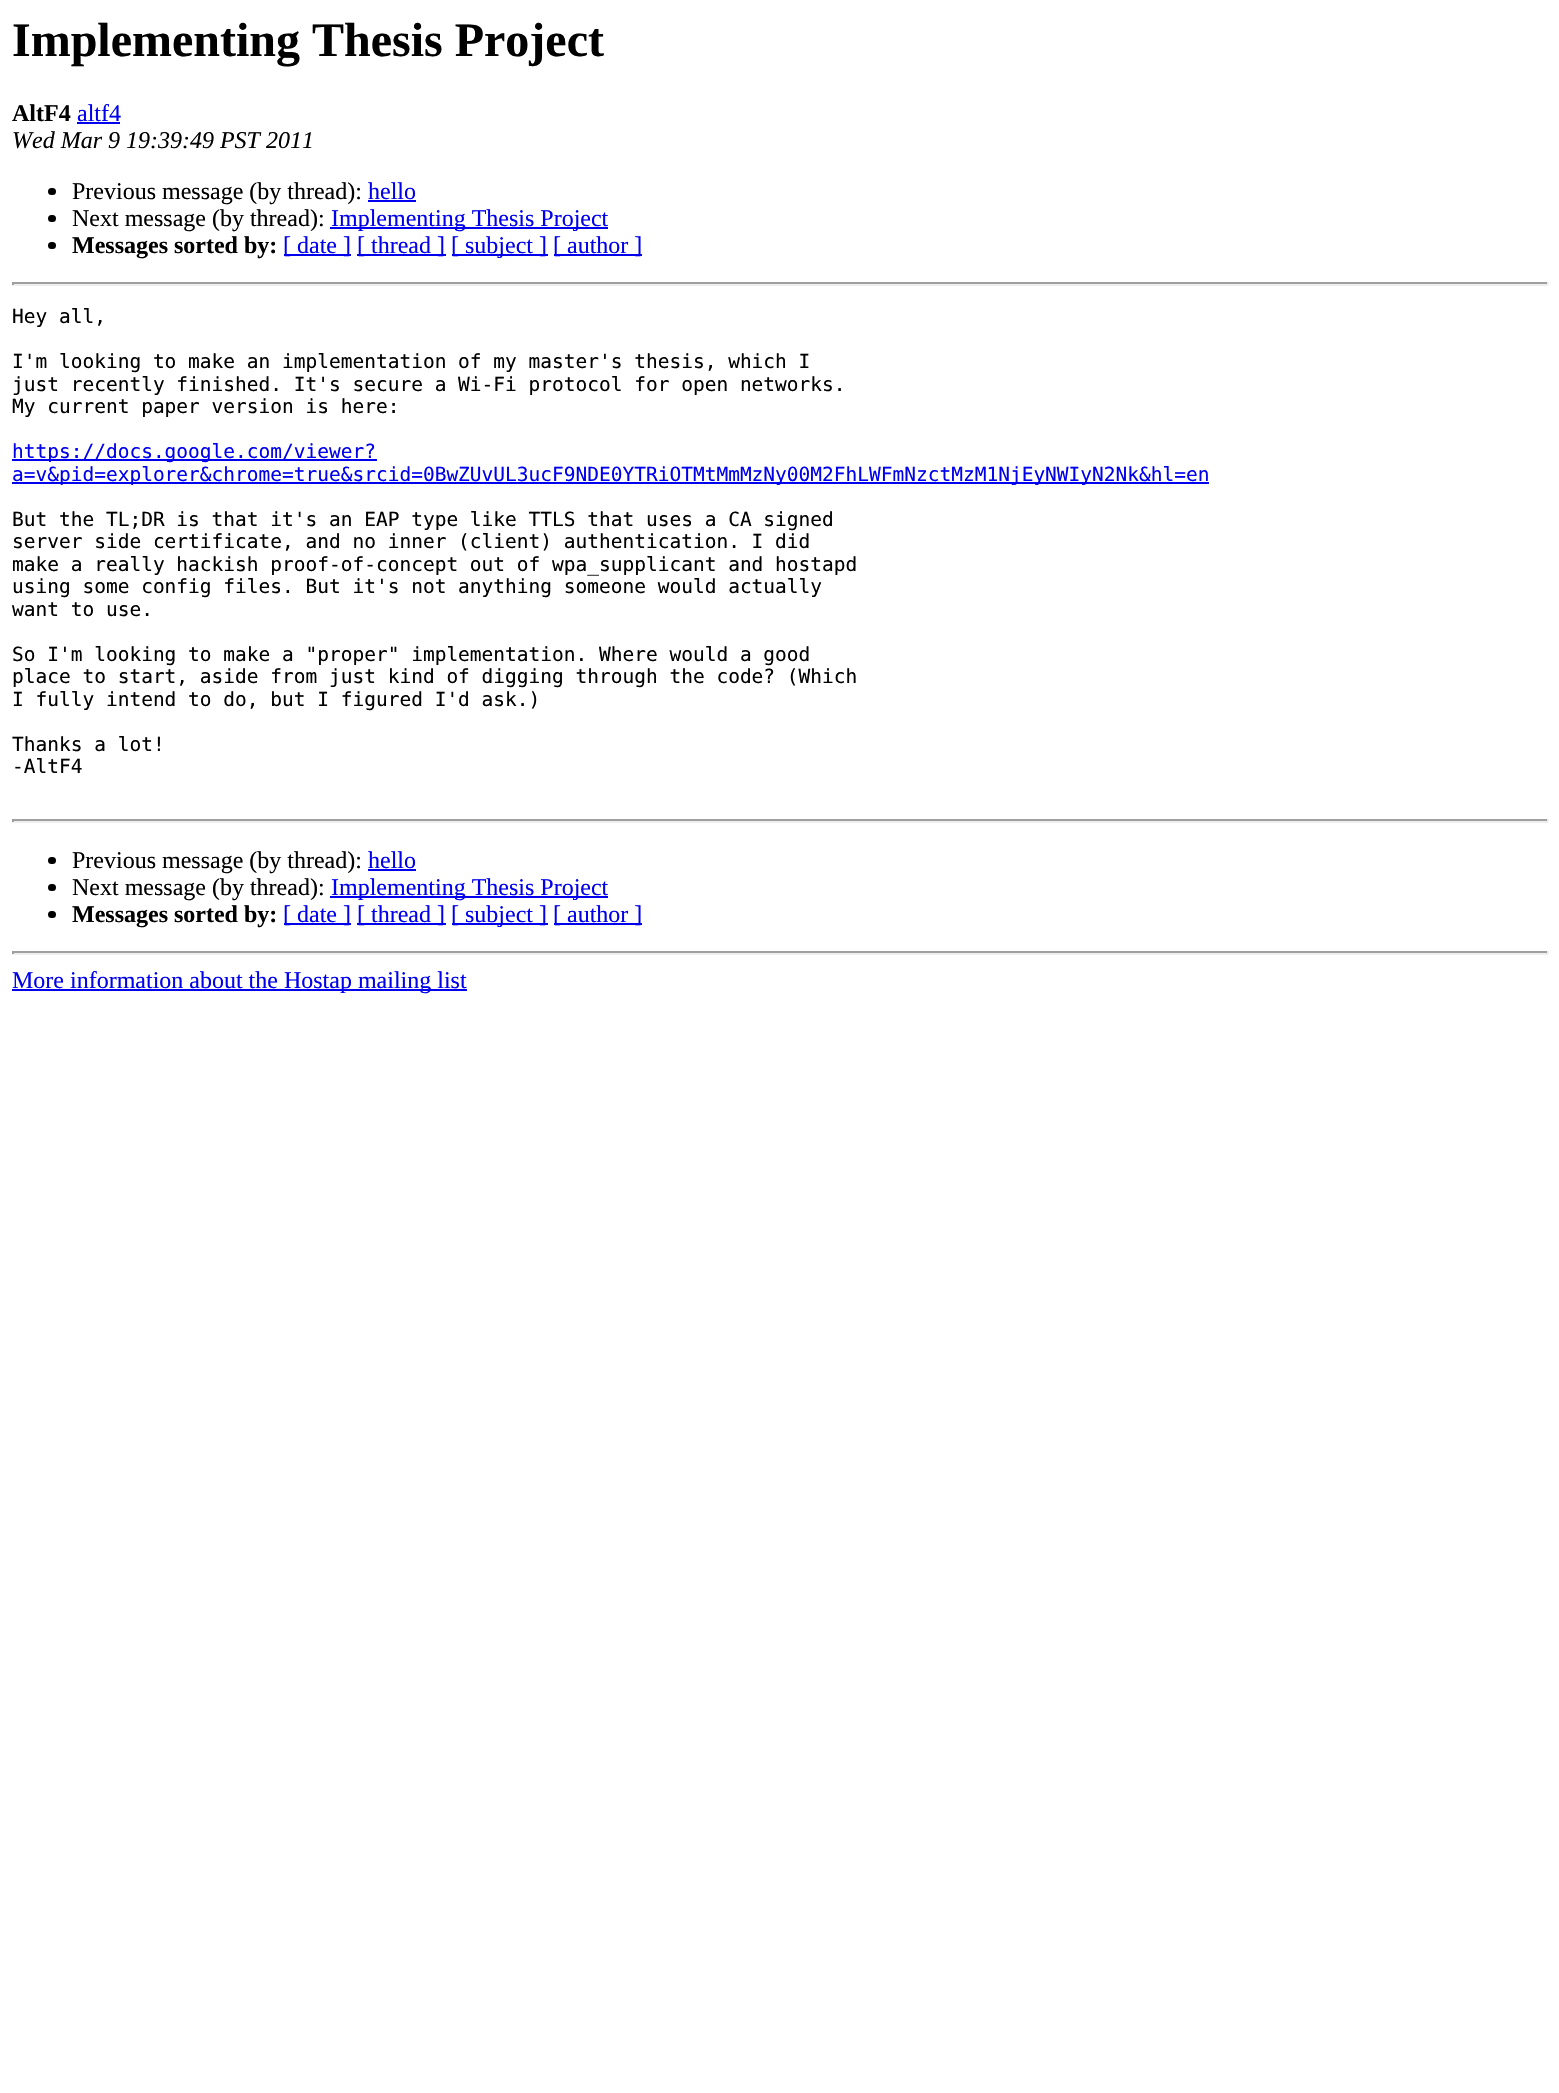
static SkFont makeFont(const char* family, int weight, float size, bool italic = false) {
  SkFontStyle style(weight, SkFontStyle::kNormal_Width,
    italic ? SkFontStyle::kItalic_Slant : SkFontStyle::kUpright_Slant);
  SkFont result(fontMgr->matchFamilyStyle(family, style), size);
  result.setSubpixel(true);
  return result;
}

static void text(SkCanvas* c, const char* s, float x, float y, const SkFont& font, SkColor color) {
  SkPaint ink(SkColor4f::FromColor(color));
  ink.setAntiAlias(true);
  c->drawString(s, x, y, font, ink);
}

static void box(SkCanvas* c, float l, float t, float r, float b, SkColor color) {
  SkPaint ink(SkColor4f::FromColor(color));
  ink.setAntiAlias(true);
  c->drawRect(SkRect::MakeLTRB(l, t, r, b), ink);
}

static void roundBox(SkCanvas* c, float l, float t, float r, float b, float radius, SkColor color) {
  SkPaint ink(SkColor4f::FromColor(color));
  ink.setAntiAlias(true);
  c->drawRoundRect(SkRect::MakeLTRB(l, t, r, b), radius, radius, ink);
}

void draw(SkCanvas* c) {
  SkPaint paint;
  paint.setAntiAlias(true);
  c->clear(0xffffffff);
  SkFont face1 = makeFont("Liberation Serif", 700, 48);
  text(c, "Implementing Thesis Project", 12, 56, face1, 0xff000000);
  SkFont face2 = makeFont("Liberation Serif", 700, 24);
  text(c, "AltF4", 12, 121, face2, 0xff000000);
  SkFont face3 = makeFont("Liberation Serif", 400, 24);
  text(c, "altf4", 77, 121, face3, 0xff0000ee);
  box(c, 77, 122, 120, 124, 0xff0000ee);
  SkFont face4 = makeFont("Liberation Serif", 400, 24, true);
  text(c, "Wed Mar 9 19:39:49 PST 2011", 12, 148, face4, 0xff000000);
  roundBox(c, 48, 188, 56, 195, 3.5f, 0xff000000);
  text(c, "Previous message (by thread):", 72, 199, face3, 0xff000000);
  text(c, "hello", 368, 199, face3, 0xff0000ee);
  box(c, 368, 200, 416, 202, 0xff0000ee);
  roundBox(c, 48, 215, 56, 222, 3.5f, 0xff000000);
  text(c, "Next message (by thread):", 72, 226, face3, 0xff000000);
  box(c, 330, 227, 608, 229, 0xff0000ee);
  text(c, "Implementing Thesis Project", 331, 226, face3, 0xff0000ee);
  roundBox(c, 48, 242, 56, 249, 3.5f, 0xff000000);
  text(c, "Messages sorted by:", 72, 253, face2, 0xff000000);
  box(c, 284, 254, 351, 256, 0xff0000ee);
  text(c, "[ date ]", 283, 253, face3, 0xff0000ee);
  box(c, 357, 254, 446, 256, 0xff0000ee);
  text(c, "[ thread ]", 357, 253, face3, 0xff0000ee);
  box(c, 452, 254, 548, 256, 0xff0000ee);
  text(c, "[ subject ]", 451, 253, face3, 0xff0000ee);
  box(c, 554, 254, 642, 256, 0xff0000ee);
  text(c, "[ author ]", 553, 253, face3, 0xff0000ee);
  box(c, 12, 282, 1548, 284, 0xff9f9f9f);
  box(c, 1547, 282, 1549, 285, 0xffeeeeee);
  box(c, 12, 284, 1548, 286, 0xffeeeeee);
  box(c, 12, 282, 14, 285, 0xff9f9f9f);
  SkFont face5 = makeFont("DejaVu Sans Mono", 400, 19.5f);
  text(c, "Hey all,", 12, 323, face5, 0xff000000);
  text(c, "I'm looking to make an implementation of my master's thesis, which I", 12, 368, face5, 0xff000000);
  text(c, "just recently finished. It's secure a Wi-Fi protocol for open networks.", 12, 391, face5, 0xff000000);
  text(c, "My current paper version is here:", 12, 413, face5, 0xff000000);
  box(c, 12, 459, 377, 461, 0xff0000ee);
  text(c, "https://docs.google.com/viewer?", 12, 458, face5, 0xff0000ee);
  box(c, 12, 482, 1209, 484, 0xff0000ee);
  text(c, "a=v&pid=explorer&chrome=true&srcid=0BwZUvUL3ucF9NDE0YTRiOTMtMmMzNy00M2FhLWFmNzctMzM1NjEyNWIyN2Nk&hl=en", 12, 481, face5, 0xff0000ee);
  text(c, "But the TL;DR is that it's an EAP type like TTLS that uses a CA signed", 12, 526, face5, 0xff000000);
  text(c, "server side certificate, and no inner (client) authentication. I did", 12, 548, face5, 0xff000000);
  text(c, "make a really hackish proof-of-concept out of wpa_supplicant and hostapd", 12, 571, face5, 0xff000000);
  text(c, "using some config files. But it's not anything someone would actually", 12, 593, face5, 0xff000000);
  text(c, "want to use.", 12, 616, face5, 0xff000000);
  text(c, "So I'm looking to make a \"proper\" implementation. Where would a good", 12, 661, face5, 0xff000000);
  text(c, "place to start, aside from just kind of digging through the code? (Which", 12, 683, face5, 0xff000000);
  text(c, "I fully intend to do, but I figured I'd ask.)", 12, 706, face5, 0xff000000);
  text(c, "Thanks a lot!", 12, 751, face5, 0xff000000);
  text(c, "-AltF4", 12, 773, face5, 0xff000000);
  box(c, 12, 819, 1548, 821, 0xff9f9f9f);
  box(c, 1547, 819, 1549, 822, 0xffeeeeee);
  box(c, 12, 821, 1548, 823, 0xffeeeeee);
  box(c, 12, 819, 14, 822, 0xff9f9f9f);
  roundBox(c, 48, 857, 56, 864, 3.5f, 0xff000000);
  text(c, "Previous message (by thread):", 72, 868, face3, 0xff000000);
  text(c, "hello", 368, 868, face3, 0xff0000ee);
  box(c, 368, 869, 416, 871, 0xff0000ee);
  roundBox(c, 48, 884, 56, 891, 3.5f, 0xff000000);
  text(c, "Next message (by thread):", 72, 895, face3, 0xff000000);
  box(c, 330, 896, 608, 898, 0xff0000ee);
  text(c, "Implementing Thesis Project", 331, 895, face3, 0xff0000ee);
  roundBox(c, 48, 911, 56, 918, 3.5f, 0xff000000);
  text(c, "Messages sorted by:", 72, 922, face2, 0xff000000);
  box(c, 284, 923, 351, 925, 0xff0000ee);
  text(c, "[ date ]", 283, 922, face3, 0xff0000ee);
  box(c, 357, 923, 446, 925, 0xff0000ee);
  text(c, "[ thread ]", 357, 922, face3, 0xff0000ee);
  box(c, 452, 923, 548, 925, 0xff0000ee);
  text(c, "[ subject ]", 451, 922, face3, 0xff0000ee);
  box(c, 554, 923, 642, 925, 0xff0000ee);
  text(c, "[ author ]", 553, 922, face3, 0xff0000ee);
  box(c, 12, 951, 1548, 953, 0xff9f9f9f);
  box(c, 1547, 951, 1549, 954, 0xffeeeeee);
  box(c, 12, 953, 1548, 955, 0xffeeeeee);
  box(c, 12, 951, 14, 954, 0xff9f9f9f);
  box(c, 12, 989, 467, 991, 0xff0000ee);
  text(c, "More information about the Hostap mailing list", 12, 988, face3, 0xff0000ee);
}
